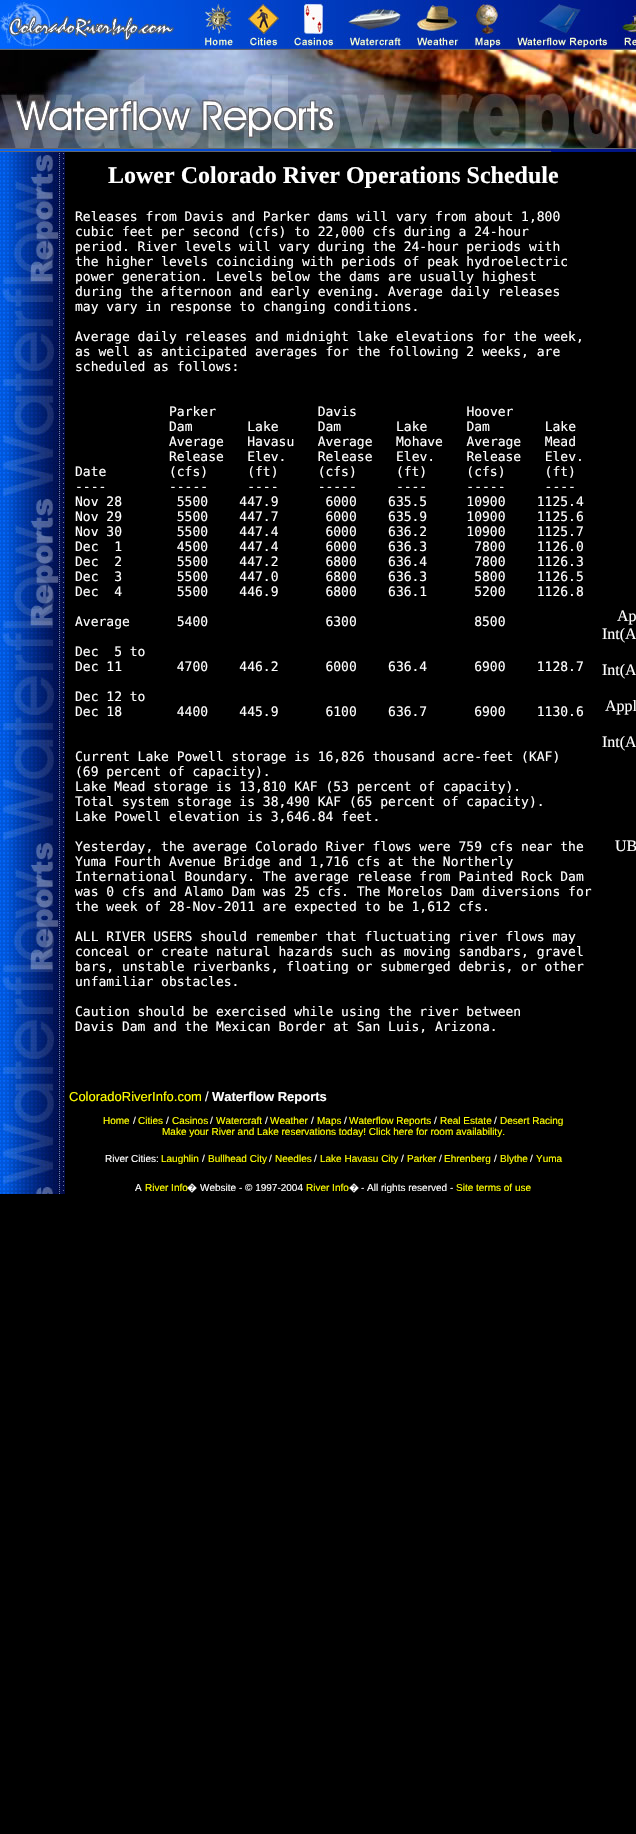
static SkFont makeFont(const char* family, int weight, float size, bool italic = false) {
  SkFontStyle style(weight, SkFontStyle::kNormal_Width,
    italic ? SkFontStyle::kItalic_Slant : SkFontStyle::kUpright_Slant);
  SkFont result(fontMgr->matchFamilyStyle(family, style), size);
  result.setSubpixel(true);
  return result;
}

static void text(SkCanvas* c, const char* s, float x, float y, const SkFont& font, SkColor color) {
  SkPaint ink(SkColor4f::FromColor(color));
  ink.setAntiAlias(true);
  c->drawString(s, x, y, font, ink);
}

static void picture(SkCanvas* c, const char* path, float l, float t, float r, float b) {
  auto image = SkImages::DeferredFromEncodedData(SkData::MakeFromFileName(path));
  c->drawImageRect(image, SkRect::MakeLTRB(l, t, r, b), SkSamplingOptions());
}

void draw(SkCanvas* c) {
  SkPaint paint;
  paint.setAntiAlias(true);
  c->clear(0xff000000);
  picture(c, "img_01.png", 0, 0, 636, 50);
  picture(c, "img_02.png", 0, 50, 636, 148);
  picture(c, "img_03.png", 0, 148, 636, 152);
  picture(c, "img_04.png", 0, 152, 65, 1194);
  SkFont face1 = makeFont("Liberation Serif", 700, 24);
  text(c, "Lower Colorado River Operations Schedule", 108, 183, face1, 0xffffffff);
  SkFont face2 = makeFont("DejaVu Sans Mono", 400, 13);
  text(c, "Releases from Davis and Parker dams will vary from about 1,800", 75, 221, face2, 0xffffffff);
  text(c, "cubic feet per second (cfs) to 22,000 cfs during a 24-hour", 75, 236, face2, 0xffffffff);
  text(c, "period. River levels will vary during the 24-hour periods with", 75, 251, face2, 0xffffffff);
  text(c, "the higher levels coinciding with periods of peak hydroelectric", 75, 266, face2, 0xffffffff);
  text(c, "power generation. Levels below the dams are usually highest", 75, 281, face2, 0xffffffff);
  text(c, "during the afternoon and early evening. Average daily releases", 75, 296, face2, 0xffffffff);
  text(c, "may vary in response to changing conditions.", 75, 311, face2, 0xffffffff);
  text(c, "Average daily releases and midnight lake elevations for the week,", 75, 341, face2, 0xffffffff);
  text(c, "as well as anticipated averages for the following 2 weeks, are", 75, 356, face2, 0xffffffff);
  text(c, "scheduled as follows:", 75, 371, face2, 0xffffffff);
  text(c, "Parker             Davis              Hoover", 169, 416, face2, 0xffffffff);
  text(c, "Dam       Lake     Dam       Lake     Dam       Lake", 169, 431, face2, 0xffffffff);
  text(c, "Average   Havasu   Average   Mohave   Average   Mead", 169, 446, face2, 0xffffffff);
  text(c, "Release   Elev.    Release   Elev.    Release   Elev.", 169, 461, face2, 0xffffffff);
  text(c, "Date        (cfs)     (ft)     (cfs)     (ft)     (cfs)     (ft)", 75, 476, face2, 0xffffffff);
  text(c, "----        -----     ----     -----     ----     -----     ----", 75, 491, face2, 0xffffffff);
  text(c, "Nov 28       5500    447.9      6000    635.5     10900    1125.4", 75, 506, face2, 0xffffffff);
  text(c, "Nov 29       5500    447.7      6000    635.9     10900    1125.6", 75, 521, face2, 0xffffffff);
  text(c, "Nov 30       5500    447.4      6000    636.2     10900    1125.7", 75, 536, face2, 0xffffffff);
  text(c, "Dec  1       4500    447.4      6000    636.3      7800    1126.0", 75, 551, face2, 0xffffffff);
  text(c, "Dec  2       5500    447.2      6800    636.4      7800    1126.3", 75, 566, face2, 0xffffffff);
  text(c, "Dec  3       5500    447.0      6800    636.3      5800    1126.5", 75, 581, face2, 0xffffffff);
  text(c, "Dec  4       5500    446.9      6800    636.1      5200    1126.8", 75, 596, face2, 0xffffffff);
  text(c, "Average      5400               6300               8500", 75, 626, face2, 0xffffffff);
  text(c, "Dec  5 to", 75, 656, face2, 0xffffffff);
  text(c, "Dec 11       4700    446.2      6000    636.4      6900    1128.7", 75, 671, face2, 0xffffffff);
  text(c, "Dec 12 to", 75, 701, face2, 0xffffffff);
  text(c, "Dec 18       4400    445.9      6100    636.7      6900    1130.6", 75, 716, face2, 0xffffffff);
  text(c, "Current Lake Powell storage is 16,826 thousand acre-feet (KAF)", 75, 761, face2, 0xffffffff);
  text(c, "(69 percent of capacity).", 75, 776, face2, 0xffffffff);
  text(c, "Lake Mead storage is 13,810 KAF (53 percent of capacity).", 75, 791, face2, 0xffffffff);
  text(c, "Total system storage is 38,490 KAF (65 percent of capacity).", 75, 806, face2, 0xffffffff);
  text(c, "Lake Powell elevation is 3,646.84 feet.", 75, 821, face2, 0xffffffff);
  text(c, "Yesterday, the average Colorado River flows were 759 cfs near the", 75, 851, face2, 0xffffffff);
  text(c, "Yuma Fourth Avenue Bridge and 1,716 cfs at the Northerly", 75, 866, face2, 0xffffffff);
  text(c, "International Boundary. The average release from Painted Rock Dam", 75, 881, face2, 0xffffffff);
  text(c, "was 0 cfs and Alamo Dam was 25 cfs. The Morelos Dam diversions for", 75, 896, face2, 0xffffffff);
  text(c, "the week of 28-Nov-2011 are expected to be 1,612 cfs.", 75, 911, face2, 0xffffffff);
  text(c, "ALL RIVER USERS should remember that fluctuating river flows may", 75, 941, face2, 0xffffffff);
  text(c, "conceal or create natural hazards such as moving sandbars, gravel", 75, 956, face2, 0xffffffff);
  text(c, "bars, unstable riverbanks, floating or submerged debris, or other", 75, 971, face2, 0xffffffff);
  text(c, "unfamiliar obstacles.", 75, 986, face2, 0xffffffff);
  text(c, "Caution should be exercised while using the river between", 75, 1016, face2, 0xffffffff);
  text(c, "Davis Dam and the Mexican Border at San Luis, Arizona.", 75, 1031, face2, 0xffffffff);
  SkFont face3 = makeFont("Liberation Serif", 400, 16);
  text(c, "Ap", 617, 621, face3, 0xffffffff);
  text(c, "Int(A", 602, 639, face3, 0xffffffff);
  text(c, "Int(A", 602, 675, face3, 0xffffffff);
  text(c, "Appl", 605, 711, face3, 0xffffffff);
  text(c, "Int(A", 602, 747, face3, 0xffffffff);
  text(c, "UB", 615, 851, face3, 0xffffffff);
  SkFont face4 = makeFont("Liberation Sans", 400, 13);
  text(c, "ColoradoRiverInfo.com", 69, 1101, face4, 0xffffff00);
  text(c, "/", 205, 1101, face4, 0xffffffff);
  SkFont face5 = makeFont("Liberation Sans", 700, 13);
  text(c, "Waterflow Reports", 212, 1101, face5, 0xffffffff);
  SkFont face6 = makeFont("Liberation Sans", 400, 10);
  text(c, "Home", 103, 1124, face6, 0xffffff00);
  text(c, "/", 133, 1124, face6, 0xffffffff);
  text(c, "Cities", 138, 1124, face6, 0xffffff00);
  text(c, "/", 166, 1124, face6, 0xffffffff);
  text(c, "Casinos", 172, 1124, face6, 0xffffff00);
  text(c, "/", 210, 1124, face6, 0xffffffff);
  text(c, "Watercraft", 216, 1124, face6, 0xffffff00);
  text(c, "/", 265, 1124, face6, 0xffffffff);
  text(c, "Weather", 270, 1124, face6, 0xffffff00);
  text(c, "/", 311, 1124, face6, 0xffffffff);
  text(c, "Maps", 317, 1124, face6, 0xffffff00);
  text(c, "/", 344, 1124, face6, 0xffffffff);
  text(c, "Waterflow Reports", 349, 1124, face6, 0xffffff00);
  text(c, "/", 434, 1124, face6, 0xffffffff);
  text(c, "Real Estate", 440, 1124, face6, 0xffffff00);
  text(c, "/", 494, 1124, face6, 0xffffffff);
  text(c, "Desert Racing", 500, 1124, face6, 0xffffff00);
  text(c, "Make your River and Lake reservations today! Click here for room availability.", 162, 1135, face6, 0xffffff00);
  text(c, "River Cities:", 105, 1162, face6, 0xffffffff);
  text(c, "Laughlin", 161, 1162, face6, 0xffffff00);
  text(c, "/", 202, 1162, face6, 0xffffffff);
  text(c, "Bullhead City", 208, 1162, face6, 0xffffff00);
  text(c, "/", 269, 1162, face6, 0xffffffff);
  text(c, "Needles", 275, 1162, face6, 0xffffff00);
  text(c, "/", 314, 1162, face6, 0xffffffff);
  text(c, "Lake Havasu City", 320, 1162, face6, 0xffffff00);
  text(c, "/", 401, 1162, face6, 0xffffffff);
  text(c, "Parker", 407, 1162, face6, 0xffffff00);
  text(c, "/", 439, 1162, face6, 0xffffffff);
  text(c, "Ehrenberg", 444, 1162, face6, 0xffffff00);
  text(c, "/", 494, 1162, face6, 0xffffffff);
  text(c, "Blythe", 500, 1162, face6, 0xffffff00);
  text(c, "/", 530, 1162, face6, 0xffffffff);
  text(c, "Yuma", 536, 1162, face6, 0xffffff00);
  text(c, "A", 135, 1191, face6, 0xffffffff);
  text(c, "River Info", 145, 1191, face6, 0xffffff00);
  SkFont face7 = makeFont("Noto Sans", 400, 10);
  text(c, "�", 187, 1191, face7, 0xffffffff);
  text(c, "Website - © 1997-2004", 200, 1191, face6, 0xffffffff);
  text(c, "River Info", 306, 1191, face6, 0xffffff00);
  text(c, "�", 349, 1191, face7, 0xffffffff);
  text(c, "- All rights reserved -", 361, 1191, face6, 0xffffffff);
  text(c, "Site terms of use", 456, 1191, face6, 0xffffff00);
}
